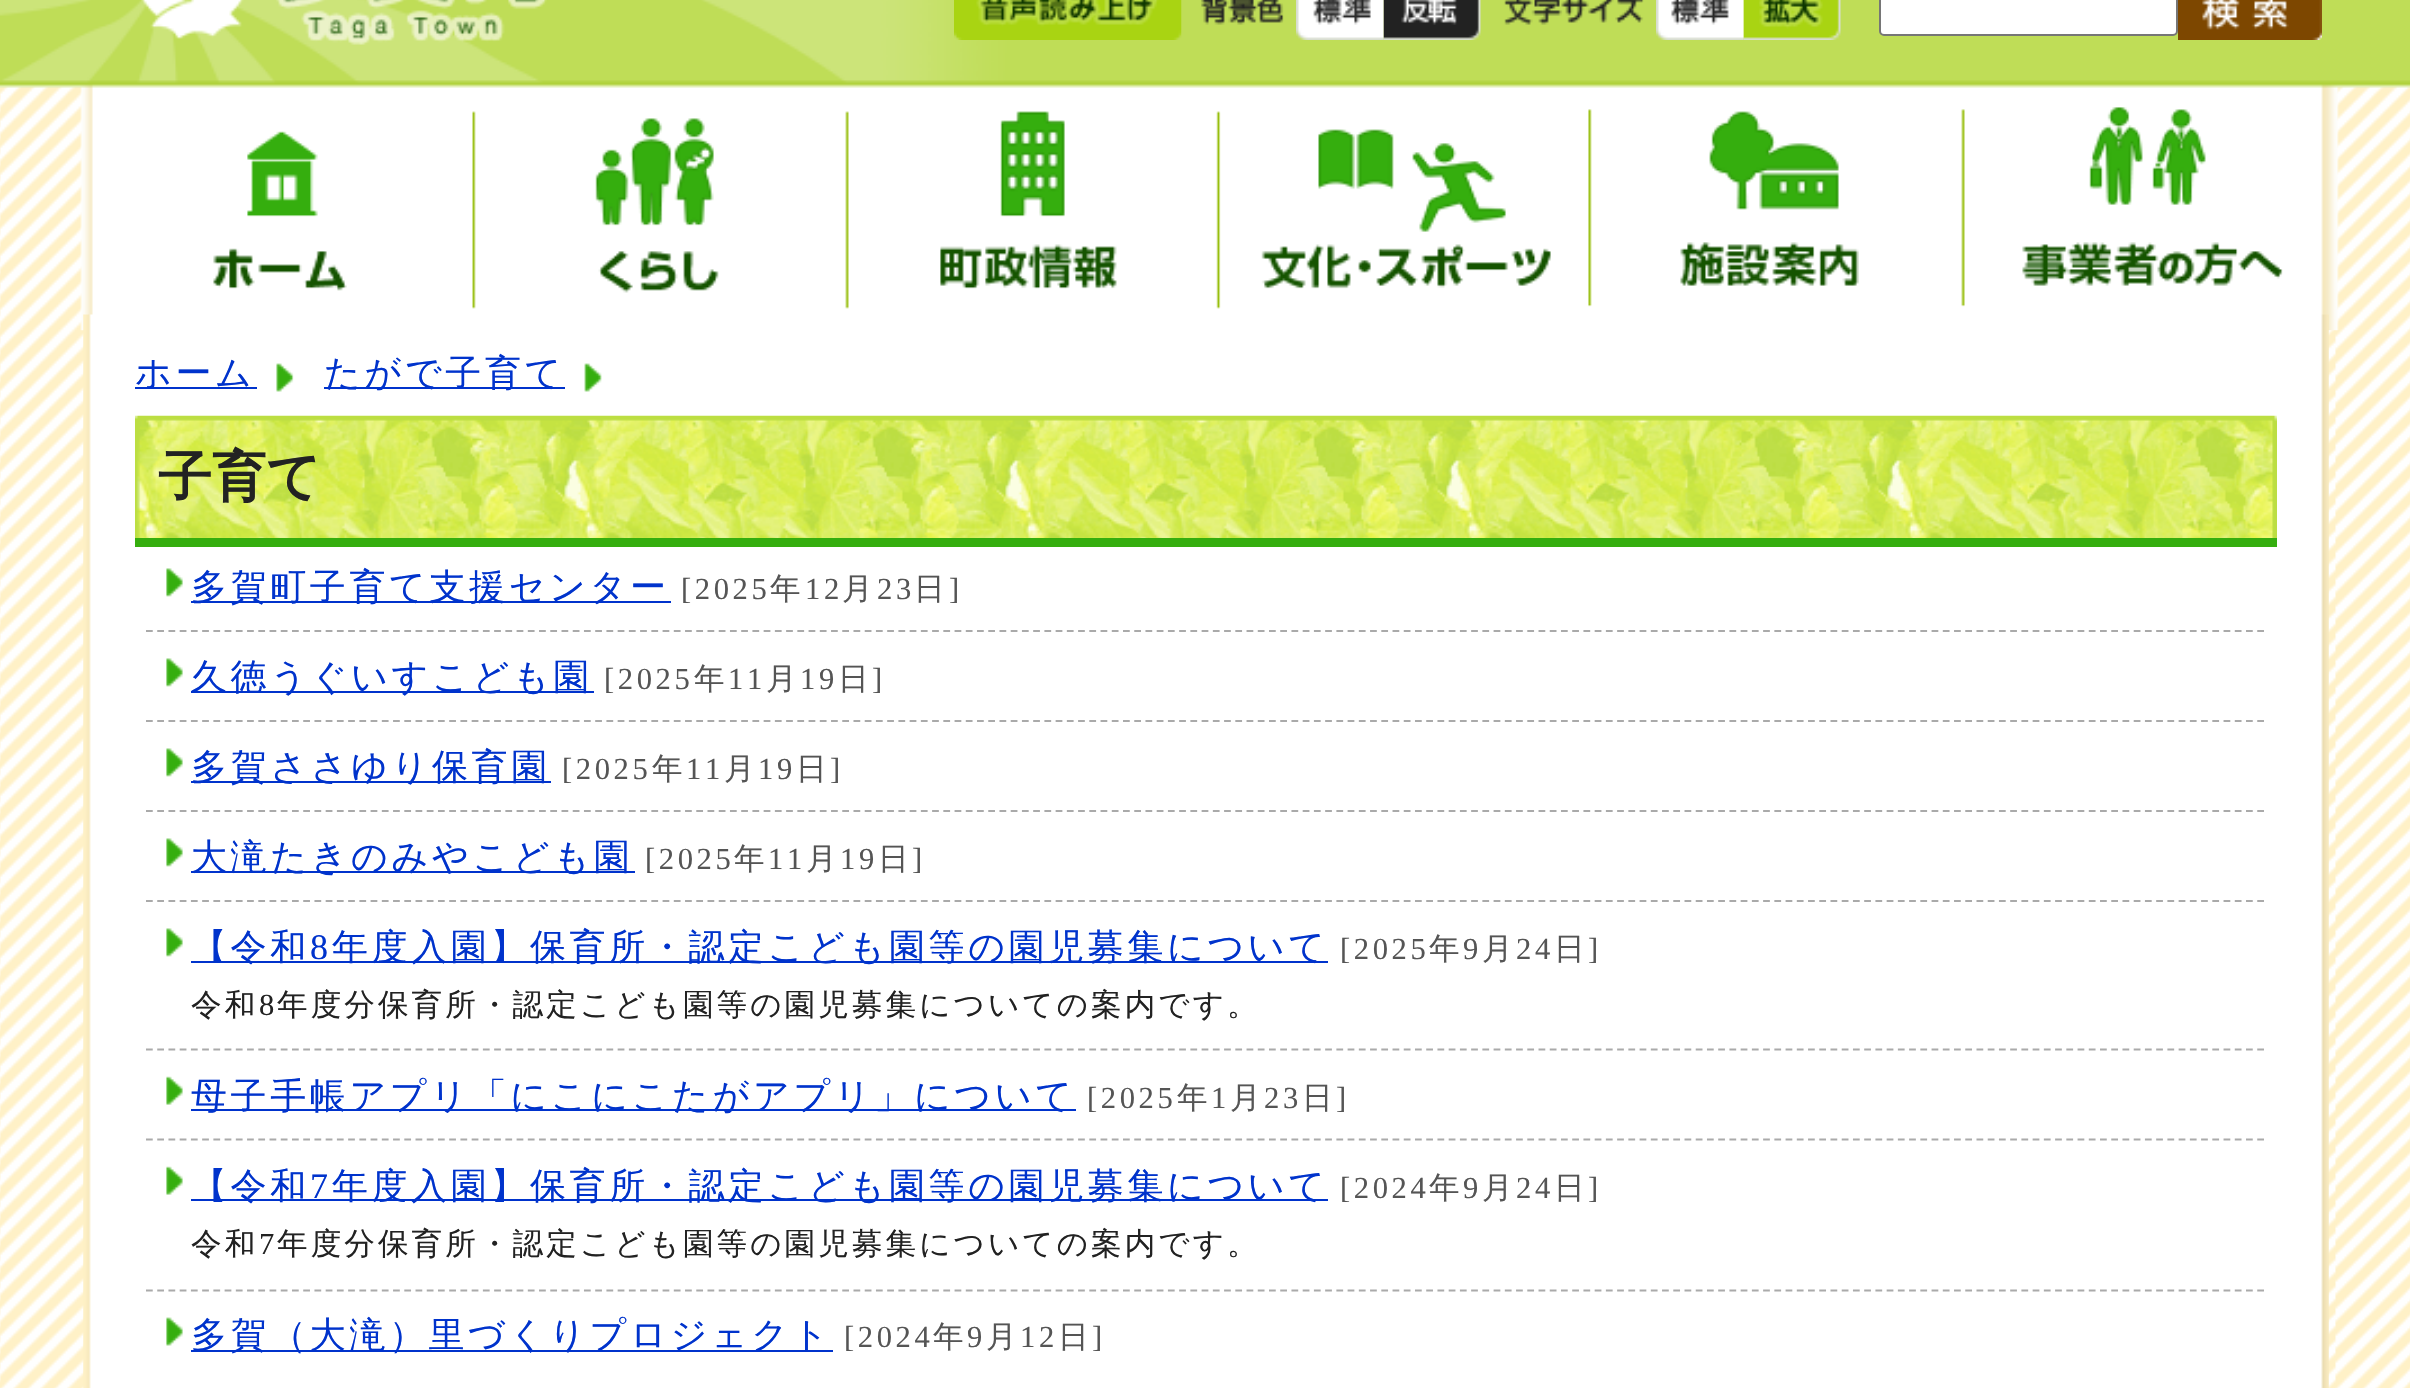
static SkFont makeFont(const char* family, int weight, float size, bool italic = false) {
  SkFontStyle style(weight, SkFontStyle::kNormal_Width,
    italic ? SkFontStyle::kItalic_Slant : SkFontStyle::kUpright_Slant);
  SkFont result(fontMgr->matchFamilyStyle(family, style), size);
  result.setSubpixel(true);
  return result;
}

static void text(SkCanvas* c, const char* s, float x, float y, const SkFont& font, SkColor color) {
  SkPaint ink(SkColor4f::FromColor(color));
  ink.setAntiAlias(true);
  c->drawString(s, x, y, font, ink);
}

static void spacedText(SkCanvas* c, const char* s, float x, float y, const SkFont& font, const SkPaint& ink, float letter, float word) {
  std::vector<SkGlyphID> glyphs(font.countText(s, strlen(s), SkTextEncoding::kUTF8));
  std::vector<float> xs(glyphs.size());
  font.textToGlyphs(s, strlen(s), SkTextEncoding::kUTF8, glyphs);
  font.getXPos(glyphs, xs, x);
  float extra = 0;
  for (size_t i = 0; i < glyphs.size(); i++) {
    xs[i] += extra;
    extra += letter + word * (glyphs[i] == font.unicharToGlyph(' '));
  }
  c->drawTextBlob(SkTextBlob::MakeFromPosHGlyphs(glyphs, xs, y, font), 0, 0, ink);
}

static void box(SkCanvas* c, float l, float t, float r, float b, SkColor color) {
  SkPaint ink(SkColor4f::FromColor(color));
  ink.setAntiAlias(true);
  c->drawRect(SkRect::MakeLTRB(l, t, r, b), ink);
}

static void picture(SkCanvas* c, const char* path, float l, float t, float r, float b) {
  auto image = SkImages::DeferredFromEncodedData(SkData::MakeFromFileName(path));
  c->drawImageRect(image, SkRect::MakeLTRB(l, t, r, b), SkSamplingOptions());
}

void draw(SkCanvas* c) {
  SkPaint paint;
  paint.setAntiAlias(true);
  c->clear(0xffffffff);
  picture(c, "img_01.png", 0, 86, 2410, 1388);
  picture(c, "img_02.png", 0, 0, 2410, 331);
  picture(c, "img_03.png", 141, 0, 547, 45);
  picture(c, "img_04.png", 954, 0, 1182, 40);
  picture(c, "img_05.png", 1201, 0, 1284, 25);
  picture(c, "img_06.png", 1296, 0, 1384, 40);
  picture(c, "img_07.png", 1383, 0, 1481, 40);
  picture(c, "img_08.png", 1504, 0, 1644, 25);
  picture(c, "img_09.png", 1656, 0, 1744, 40);
  picture(c, "img_10.png", 1743, 0, 1841, 40);
  paint.setColor(0xffffffff);
  c->drawRoundRect(SkRect::MakeLTRB(1880, -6, 2177, 35), 4, 4, paint);
  paint.setStyle(SkPaint::kStroke_Style);
  paint.setStrokeWidth(2);
  paint.setColor(0xff767676);
  c->drawRoundRect(SkRect::MakeLTRB(1880, -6, 2177, 35), 4, 4, paint);
  picture(c, "img_11.png", 2178, 0, 2322, 40);
  picture(c, "img_12.png", 213, 131, 347, 291);
  picture(c, "img_13.png", 472, 111, 719, 309);
  picture(c, "img_14.png", 845, 111, 1117, 309);
  picture(c, "img_15.png", 1216, 111, 1551, 309);
  picture(c, "img_16.png", 1588, 109, 1859, 307);
  picture(c, "img_17.png", 1961, 107, 2283, 307);
  picture(c, "img_18.png", 83, 314, 2329, 1388);
  picture(c, "img_19.png", 276, 363, 294, 392);
  box(c, 135, 387, 257, 389, 0xff0033cc);
  SkFont face1 = makeFont("WenQuanYi Zen Hei", 500, 36);
  paint.setStyle(SkPaint::kFill_Style);
  paint.setColor(0xff0033cc);
  spacedText(c, "ホーム", 135, 385, face1, paint, 3.6f, 0);
  picture(c, "img_20.png", 584, 363, 602, 392);
  box(c, 324, 387, 565, 389, 0xff0033cc);
  spacedText(c, "たがで子育て", 324, 385, face1, paint, 3.6f, 0);
  picture(c, "img_21.png", 135, 415, 2277, 538);
  box(c, 135, 538, 2277, 547, 0xff35ae0e);
  SkFont face2 = makeFont("WenQuanYi Zen Hei", 700, 54);
  text(c, "子育て", 158, 495, face2, 0xff222222);
  picture(c, "img_22.png", 166, 568, 183, 597);
  paint.setStyle(SkPaint::kStroke_Style);
  paint.setStrokeWidth(2.2f);
  paint.setColor(0xffaaaaaa);
  paint.setPathEffect(SkDashPathEffect::Make({{6.75f, 4.48f}}, 0));
  c->drawPath(SkPathBuilder().moveTo(146, 631).lineTo(2266, 631).detach(), paint);
  paint.setPathEffect(nullptr);
  box(c, 191, 601, 671, 603, 0xff0033cc);
  paint.setStyle(SkPaint::kFill_Style);
  paint.setColor(0xff0033cc);
  spacedText(c, "多賀町子育て支援センター", 191, 599, face1, paint, 3.6f, 0);
  SkFont face3 = makeFont("Liberation Serif", 400, 30.6f);
  paint.setColor(0xff555555);
  spacedText(c, "[2025", 681, 599, face3, paint, 3.6f, 0);
  SkFont face4 = makeFont("WenQuanYi Zen Hei", 500, 30.6f);
  spacedText(c, "年", 770, 599, face4, paint, 3.6f, 0);
  spacedText(c, "12", 805, 599, face3, paint, 3.6f, 0);
  spacedText(c, "月", 842, 599, face4, paint, 3.6f, 0);
  spacedText(c, "23", 877, 599, face3, paint, 3.6f, 0);
  spacedText(c, "日", 914, 599, face4, paint, 3.6f, 0);
  spacedText(c, "]", 949, 599, face3, paint, 3.6f, 0);
  picture(c, "img_23.png", 166, 658, 183, 687);
  paint.setStyle(SkPaint::kStroke_Style);
  paint.setColor(0xffaaaaaa);
  paint.setPathEffect(SkDashPathEffect::Make({{6.75f, 4.48f}}, 0));
  c->drawPath(SkPathBuilder().moveTo(146, 721).lineTo(2266, 721).detach(), paint);
  paint.setPathEffect(nullptr);
  box(c, 191, 691, 594, 693, 0xff0033cc);
  paint.setStyle(SkPaint::kFill_Style);
  paint.setColor(0xff0033cc);
  spacedText(c, "久徳うぐいすこども園", 191, 689, face1, paint, 3.6f, 0);
  paint.setColor(0xff555555);
  spacedText(c, "[2025", 604, 689, face3, paint, 3.6f, 0);
  spacedText(c, "年", 694, 689, face4, paint, 3.6f, 0);
  spacedText(c, "11", 728, 689, face3, paint, 3.6f, 0);
  spacedText(c, "月", 766, 689, face4, paint, 3.6f, 0);
  spacedText(c, "19", 800, 689, face3, paint, 3.6f, 0);
  spacedText(c, "日", 838, 689, face4, paint, 3.6f, 0);
  spacedText(c, "]", 872, 689, face3, paint, 3.6f, 0);
  picture(c, "img_22.png", 166, 748, 183, 777);
  paint.setStyle(SkPaint::kStroke_Style);
  paint.setColor(0xffaaaaaa);
  paint.setPathEffect(SkDashPathEffect::Make({{6.75f, 4.48f}}, 0));
  c->drawPath(SkPathBuilder().moveTo(146, 811).lineTo(2266, 811).detach(), paint);
  paint.setPathEffect(nullptr);
  box(c, 191, 781, 551, 783, 0xff0033cc);
  paint.setStyle(SkPaint::kFill_Style);
  paint.setColor(0xff0033cc);
  spacedText(c, "多賀ささゆり保育園", 191, 779, face1, paint, 3.6f, 0);
  paint.setColor(0xff555555);
  spacedText(c, "[2025", 562, 779, face3, paint, 3.6f, 0);
  spacedText(c, "年", 652, 779, face4, paint, 3.6f, 0);
  spacedText(c, "11", 686, 779, face3, paint, 3.6f, 0);
  spacedText(c, "月", 724, 779, face4, paint, 3.6f, 0);
  spacedText(c, "19", 758, 779, face3, paint, 3.6f, 0);
  spacedText(c, "日", 796, 779, face4, paint, 3.6f, 0);
  spacedText(c, "]", 830, 779, face3, paint, 3.6f, 0);
  picture(c, "img_22.png", 166, 838, 183, 867);
  paint.setStyle(SkPaint::kStroke_Style);
  paint.setColor(0xffaaaaaa);
  paint.setPathEffect(SkDashPathEffect::Make({{6.75f, 4.48f}}, 0));
  c->drawPath(SkPathBuilder().moveTo(146, 901).lineTo(2266, 901).detach(), paint);
  paint.setPathEffect(nullptr);
  box(c, 191, 871, 635, 873, 0xff0033cc);
  paint.setStyle(SkPaint::kFill_Style);
  paint.setColor(0xff0033cc);
  spacedText(c, "大滝たきのみやこども園", 191, 869, face1, paint, 3.6f, 0);
  paint.setColor(0xff555555);
  spacedText(c, "[2025", 645, 869, face3, paint, 3.6f, 0);
  spacedText(c, "年", 734, 869, face4, paint, 3.6f, 0);
  spacedText(c, "11", 768, 869, face3, paint, 3.6f, 0);
  spacedText(c, "月", 806, 869, face4, paint, 3.6f, 0);
  spacedText(c, "19", 840, 869, face3, paint, 3.6f, 0);
  spacedText(c, "日", 878, 869, face4, paint, 3.6f, 0);
  spacedText(c, "]", 912, 869, face3, paint, 3.6f, 0);
  picture(c, "img_22.png", 166, 928, 183, 957);
  paint.setStyle(SkPaint::kStroke_Style);
  paint.setColor(0xffaaaaaa);
  paint.setPathEffect(SkDashPathEffect::Make({{6.75f, 4.48f}}, 0));
  c->drawPath(SkPathBuilder().moveTo(146, 1049.5f).lineTo(2266, 1049.5f).detach(), paint);
  paint.setPathEffect(nullptr);
  box(c, 191, 961, 1328, 963, 0xff0033cc);
  paint.setStyle(SkPaint::kFill_Style);
  paint.setColor(0xff0033cc);
  spacedText(c, "【令和", 191, 959, face1, paint, 3.6f, 0);
  SkFont face5 = makeFont("Liberation Serif", 400, 36);
  spacedText(c, "8", 310, 959, face5, paint, 3.6f, 0);
  spacedText(c, "年度入園】保育所・認定こども園等の園児募集について", 332, 959, face1, paint, 3.6f, 0);
  paint.setColor(0xff555555);
  spacedText(c, "[2025", 1340, 959, face3, paint, 3.6f, 0);
  spacedText(c, "年", 1429, 959, face4, paint, 3.6f, 0);
  spacedText(c, "9", 1463, 959, face3, paint, 3.6f, 0);
  spacedText(c, "月", 1482, 959, face4, paint, 3.6f, 0);
  spacedText(c, "24", 1516, 959, face3, paint, 3.6f, 0);
  spacedText(c, "日", 1554, 959, face4, paint, 3.6f, 0);
  spacedText(c, "]", 1588, 959, face3, paint, 3.6f, 0);
  paint.setColor(0xff222222);
  spacedText(c, "令和", 191, 1015, face4, paint, 3.05f, 0);
  spacedText(c, "8", 259, 1015, face3, paint, 3.05f, 0);
  spacedText(c, "年度分保育所・認定こども園等の園児募集についての案内です。", 277, 1015, face4, paint, 3.05f, 0);
  picture(c, "img_24.png", 166, 1076, 183, 1105);
  paint.setStyle(SkPaint::kStroke_Style);
  paint.setColor(0xffaaaaaa);
  paint.setPathEffect(SkDashPathEffect::Make({{6.75f, 4.48f}}, 0));
  c->drawPath(SkPathBuilder().moveTo(146, 1139.5f).lineTo(2266, 1139.5f).detach(), paint);
  paint.setPathEffect(nullptr);
  box(c, 191, 1109, 1076, 1111, 0xff0033cc);
  paint.setStyle(SkPaint::kFill_Style);
  paint.setColor(0xff0033cc);
  spacedText(c, "母子手帳アプリ「にこにこたがアプリ」について", 191, 1108, face1, paint, 3.6f, 0);
  paint.setColor(0xff555555);
  spacedText(c, "[2025", 1087, 1108, face3, paint, 3.6f, 0);
  spacedText(c, "年", 1177, 1108, face4, paint, 3.6f, 0);
  spacedText(c, "1", 1211, 1108, face3, paint, 3.6f, 0);
  spacedText(c, "月", 1230, 1108, face4, paint, 3.6f, 0);
  spacedText(c, "23", 1264, 1108, face3, paint, 3.6f, 0);
  spacedText(c, "日", 1302, 1108, face4, paint, 3.6f, 0);
  spacedText(c, "]", 1336, 1108, face3, paint, 3.6f, 0);
  picture(c, "img_25.png", 166, 1166, 183, 1195);
  paint.setStyle(SkPaint::kStroke_Style);
  paint.setColor(0xffaaaaaa);
  paint.setPathEffect(SkDashPathEffect::Make({{6.75f, 4.48f}}, 0));
  c->drawPath(SkPathBuilder().moveTo(146, 1290.5f).lineTo(2266, 1290.5f).detach(), paint);
  paint.setPathEffect(nullptr);
  box(c, 191, 1199, 1328, 1201, 0xff0033cc);
  paint.setStyle(SkPaint::kFill_Style);
  paint.setColor(0xff0033cc);
  spacedText(c, "【令和", 191, 1198, face1, paint, 3.6f, 0);
  spacedText(c, "7", 310, 1198, face5, paint, 3.6f, 0);
  spacedText(c, "年度入園】保育所・認定こども園等の園児募集について", 332, 1198, face1, paint, 3.6f, 0);
  paint.setColor(0xff555555);
  spacedText(c, "[2024", 1340, 1198, face3, paint, 3.6f, 0);
  spacedText(c, "年", 1429, 1198, face4, paint, 3.6f, 0);
  spacedText(c, "9", 1463, 1198, face3, paint, 3.6f, 0);
  spacedText(c, "月", 1482, 1198, face4, paint, 3.6f, 0);
  spacedText(c, "24", 1516, 1198, face3, paint, 3.6f, 0);
  spacedText(c, "日", 1554, 1198, face4, paint, 3.6f, 0);
  spacedText(c, "]", 1588, 1198, face3, paint, 3.6f, 0);
  paint.setColor(0xff222222);
  spacedText(c, "令和", 191, 1254, face4, paint, 3.05f, 0);
  spacedText(c, "7", 259, 1254, face3, paint, 3.05f, 0);
  spacedText(c, "年度分保育所・認定こども園等の園児募集についての案内です。", 277, 1254, face4, paint, 3.05f, 0);
  picture(c, "img_26.png", 166, 1317, 183, 1346);
  box(c, 191, 1350, 833, 1352, 0xff0033cc);
  paint.setColor(0xff0033cc);
  spacedText(c, "多賀（大滝）里づくりプロジェクト", 191, 1347, face1, paint, 3.6f, 0);
  paint.setColor(0xff555555);
  spacedText(c, "[2024", 844, 1347, face3, paint, 3.6f, 0);
  spacedText(c, "年", 933, 1347, face4, paint, 3.6f, 0);
  spacedText(c, "9", 967, 1347, face3, paint, 3.6f, 0);
  spacedText(c, "月", 986, 1347, face4, paint, 3.6f, 0);
  spacedText(c, "12", 1020, 1347, face3, paint, 3.6f, 0);
  spacedText(c, "日", 1058, 1347, face4, paint, 3.6f, 0);
  spacedText(c, "]", 1092, 1347, face3, paint, 3.6f, 0);
}
